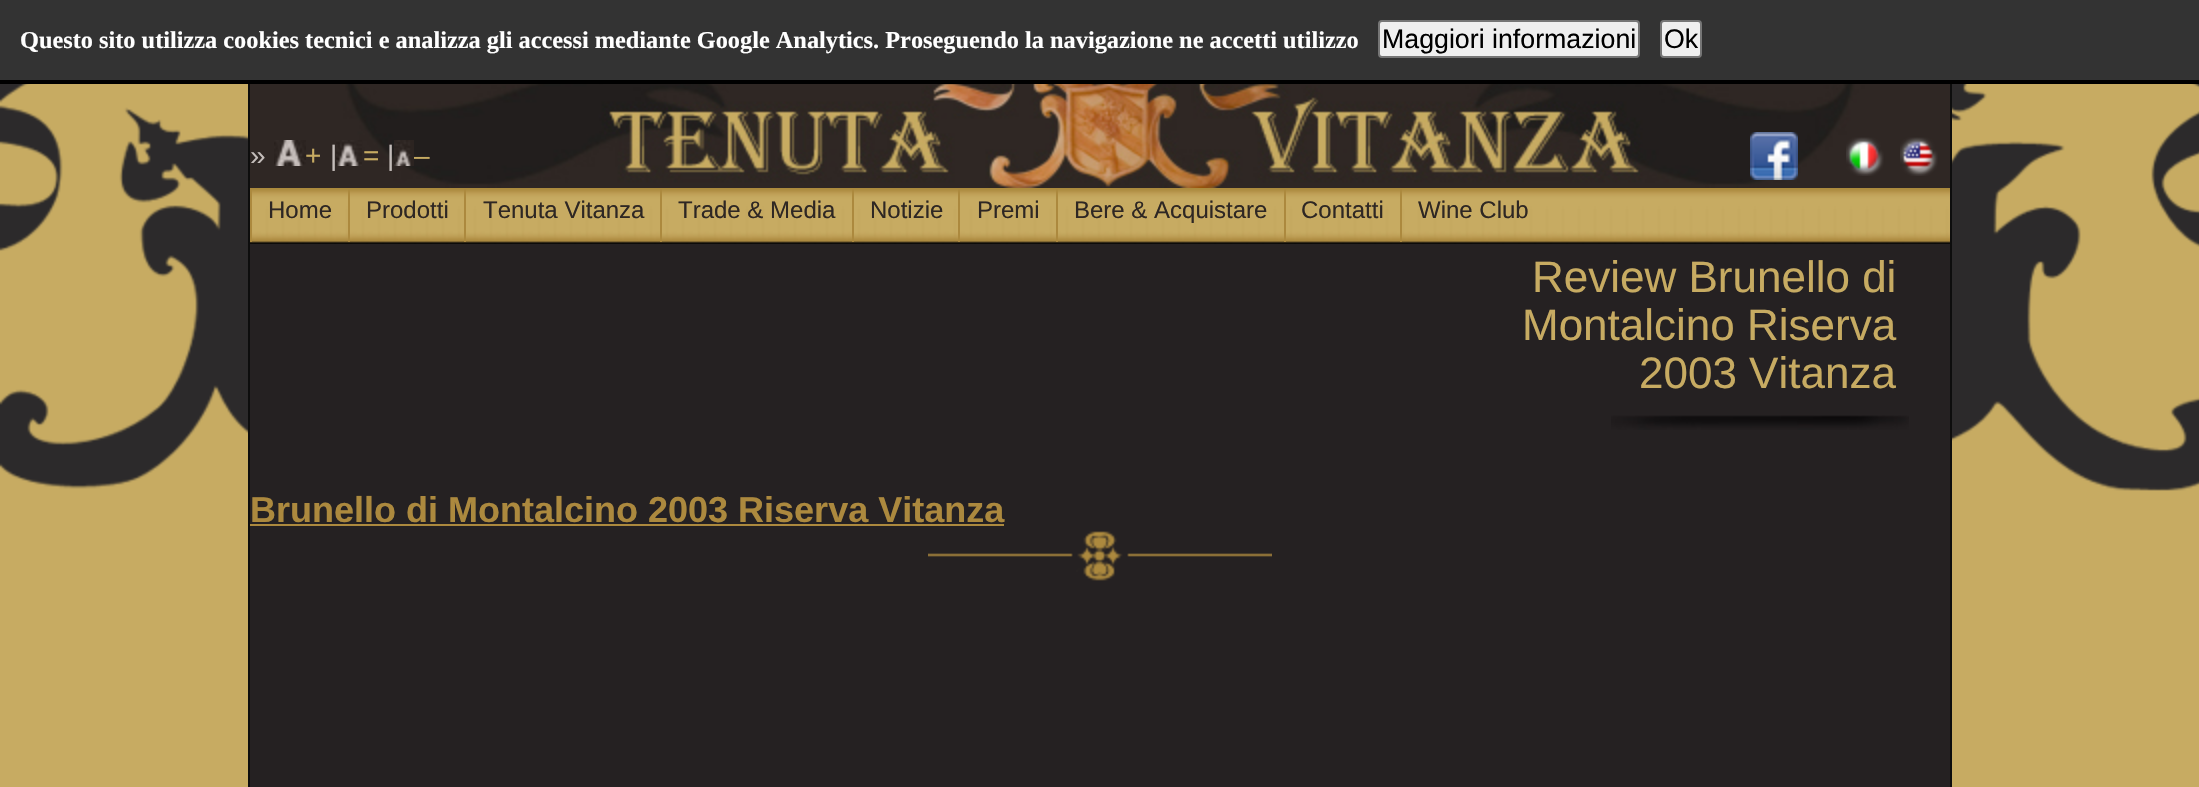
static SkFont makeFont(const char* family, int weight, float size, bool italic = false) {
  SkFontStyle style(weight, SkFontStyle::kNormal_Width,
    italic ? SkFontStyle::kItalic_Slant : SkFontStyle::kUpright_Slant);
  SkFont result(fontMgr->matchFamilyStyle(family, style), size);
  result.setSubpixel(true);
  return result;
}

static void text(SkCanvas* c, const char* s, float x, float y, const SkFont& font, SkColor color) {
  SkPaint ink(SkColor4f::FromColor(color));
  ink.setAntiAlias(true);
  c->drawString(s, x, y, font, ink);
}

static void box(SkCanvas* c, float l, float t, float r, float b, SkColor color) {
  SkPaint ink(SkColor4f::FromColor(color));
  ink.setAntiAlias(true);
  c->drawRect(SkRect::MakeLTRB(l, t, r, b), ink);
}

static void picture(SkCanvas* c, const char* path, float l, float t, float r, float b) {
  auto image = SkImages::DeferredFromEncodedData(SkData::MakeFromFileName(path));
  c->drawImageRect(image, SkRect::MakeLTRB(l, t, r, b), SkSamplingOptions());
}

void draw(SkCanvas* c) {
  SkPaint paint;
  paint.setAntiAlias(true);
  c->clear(0xffc7ab62);
  picture(c, "img_01.png", 0, 84, 2199, 491);
  box(c, 0, 0, 2199, 80, 0xff333333);
  box(c, 0, 80, 2199, 84, 0xff000000);
  SkFont face1 = makeFont("Liberation Serif", 700, 24.32f);
  text(c, "Questo sito utilizza cookies tecnici e analizza gli accessi mediante Google Analytics. Proseguendo la navigazione ne accetti utilizzo", 20, 48, face1, 0xffffffff);
  paint.setColor(0xffefefef);
  c->drawRoundRect(SkRect::MakeLTRB(1379, 21, 1639, 57), 3, 3, paint);
  paint.setStyle(SkPaint::kStroke_Style);
  paint.setStrokeWidth(2);
  paint.setColor(0xff767676);
  c->drawRoundRect(SkRect::MakeLTRB(1379, 21, 1639, 57), 3, 3, paint);
  SkFont face2 = makeFont("Liberation Sans", 400, 26.75f);
  text(c, "Maggiori informazioni", 1382, 48, face2, 0xff000000);
  paint.setStyle(SkPaint::kFill_Style);
  paint.setColor(0xffefefef);
  c->drawRoundRect(SkRect::MakeLTRB(1661, 21, 1701, 57), 3, 3, paint);
  paint.setStyle(SkPaint::kStroke_Style);
  paint.setColor(0xff767676);
  c->drawRoundRect(SkRect::MakeLTRB(1661, 21, 1701, 57), 3, 3, paint);
  text(c, "Ok", 1664, 48, face2, 0xff000000);
  box(c, 250, 244, 1950, 787, 0xff252122);
  box(c, 1950, 84, 1952, 787, 0xff0d0d0d);
  box(c, 248, 84, 250, 787, 0xff0d0d0d);
  picture(c, "img_02.png", 250, 84, 1950, 188);
  SkFont face3 = makeFont("Liberation Sans", 400, 28);
  text(c, "»", 250, 165, face3, 0xffc4bdba);
  picture(c, "img_03.png", 274, 140, 306, 166);
  text(c, "+", 305, 165, face3, 0xffc7ab62);
  text(c, "|", 330, 165, face3, 0xffc4bdba);
  picture(c, "img_04.png", 336, 140, 362, 166);
  text(c, "=", 363, 165, face3, 0xffc7ab62);
  text(c, "|", 387, 165, face3, 0xffc4bdba);
  picture(c, "img_05.png", 394, 140, 414, 166);
  text(c, "–", 414, 165, face3, 0xffc7ab62);
  picture(c, "img_06.png", 1750, 132, 1798, 180);
  picture(c, "img_07.png", 1846, 137, 1884, 176);
  picture(c, "img_08.png", 1900, 137, 1938, 176);
  picture(c, "img_09.png", 250, 188, 1950, 244);
  box(c, 250, 188, 252, 242, 0xffac893e);
  SkFont face4 = makeFont("Liberation Sans", 400, 24);
  text(c, "Home", 268, 218, face4, 0xff2e2723);
  box(c, 348, 188, 350, 242, 0xffac893e);
  text(c, "Prodotti", 366, 218, face4, 0xff2e2723);
  box(c, 464, 188, 466, 242, 0xffac893e);
  text(c, "Tenuta Vitanza", 483, 218, face4, 0xff2e2723);
  box(c, 660, 188, 662, 242, 0xffac893e);
  text(c, "Trade & Media", 678, 218, face4, 0xff2e2723);
  box(c, 852, 188, 854, 242, 0xffac893e);
  text(c, "Notizie", 870, 218, face4, 0xff2e2723);
  box(c, 958, 188, 960, 242, 0xffac893e);
  text(c, "Premi", 977, 218, face4, 0xff2e2723);
  box(c, 1056, 188, 1058, 242, 0xffac893e);
  text(c, "Bere & Acquistare", 1074, 218, face4, 0xff2e2723);
  box(c, 1284, 188, 1286, 242, 0xffac893e);
  text(c, "Contatti", 1301, 218, face4, 0xff2e2723);
  box(c, 1400, 188, 1402, 242, 0xffac893e);
  text(c, "Wine Club", 1418, 218, face4, 0xff2e2723);
  SkFont face5 = makeFont("Liberation Sans", 400, 44);
  text(c, "Review Brunello di", 1532, 292, face5, 0xffc7ab62);
  text(c, "Montalcino Riserva", 1522, 340, face5, 0xffc7ab62);
  text(c, "2003 Vitanza", 1639, 388, face5, 0xffc7ab62);
  picture(c, "img_10.png", 1611, 415, 1909, 430);
  SkFont face6 = makeFont("Liberation Sans", 700, 36);
  text(c, "Brunello di Montalcino 2003 Riserva Vitanza", 250, 522, face6, 0xffac893e);
  box(c, 250, 524, 1004, 526, 0xffac893e);
  picture(c, "img_11.png", 928, 531, 1272, 581);
}
